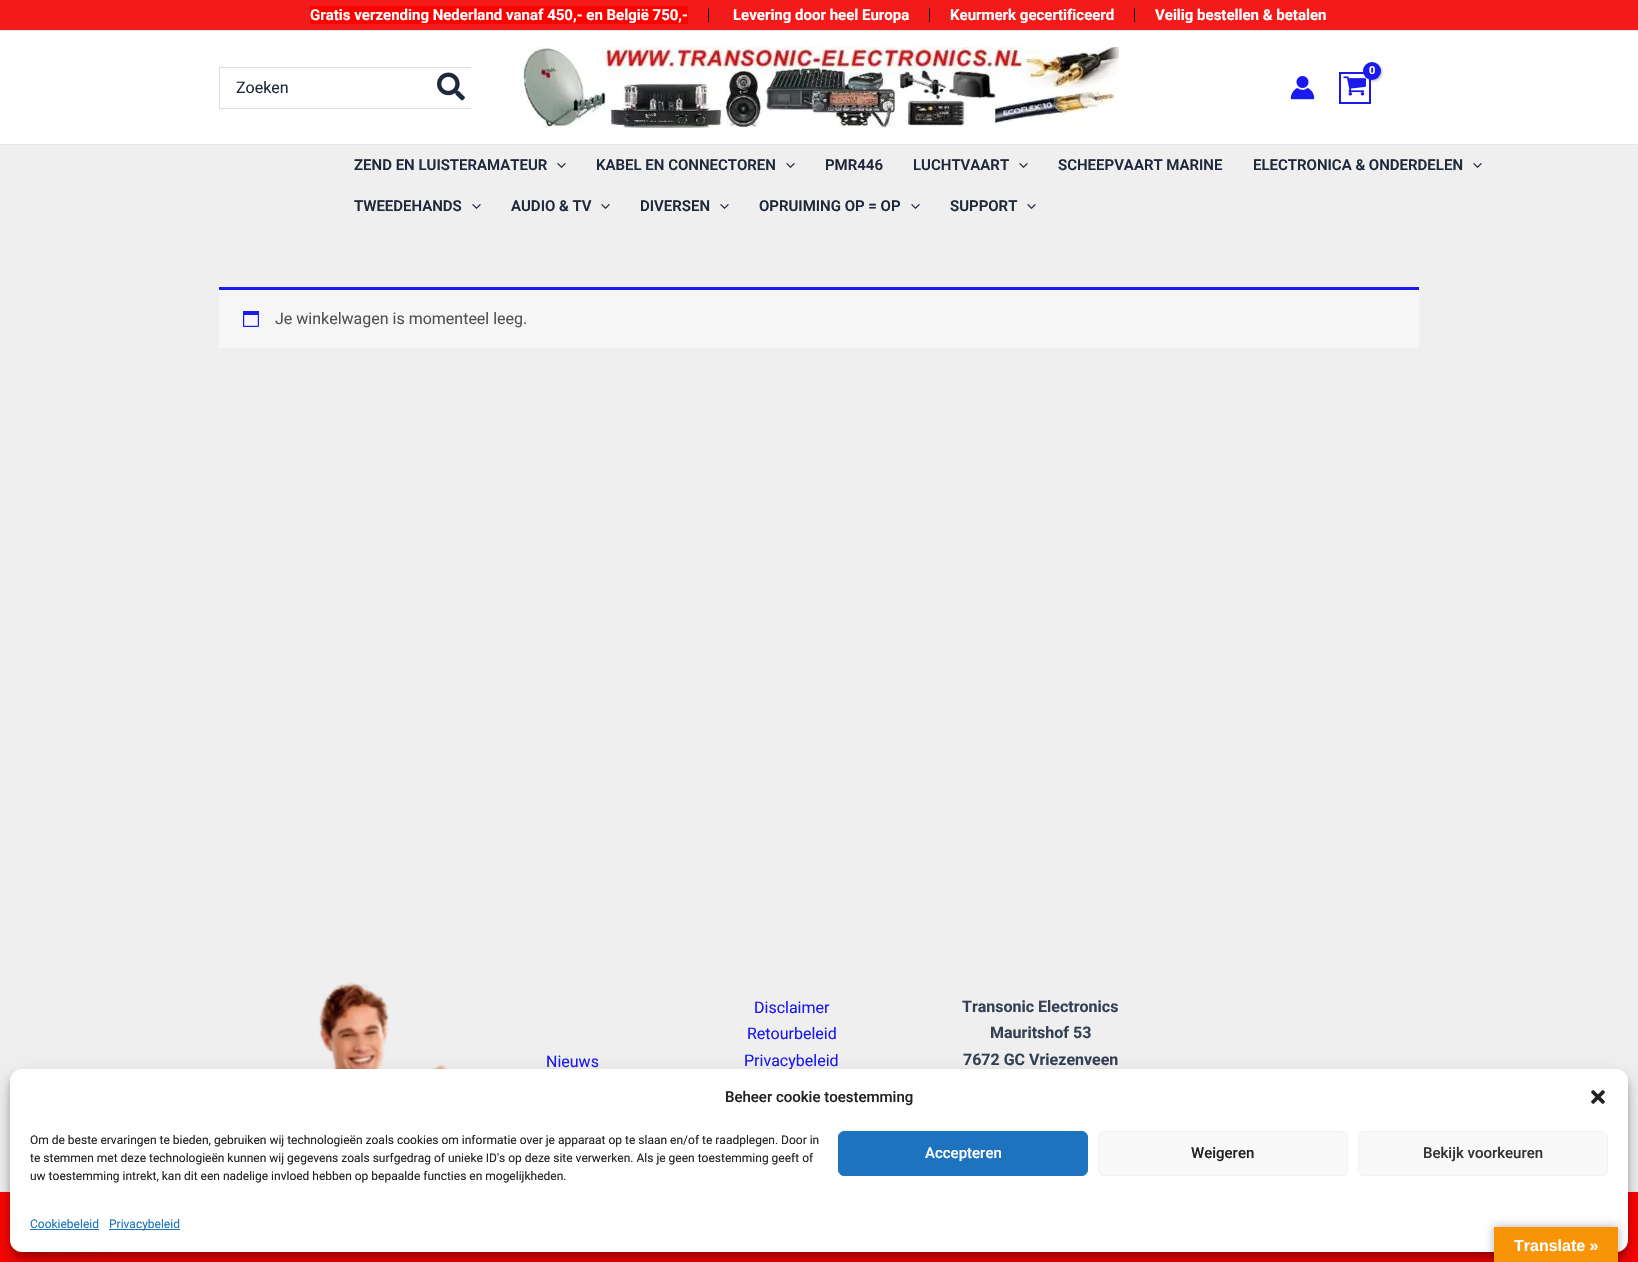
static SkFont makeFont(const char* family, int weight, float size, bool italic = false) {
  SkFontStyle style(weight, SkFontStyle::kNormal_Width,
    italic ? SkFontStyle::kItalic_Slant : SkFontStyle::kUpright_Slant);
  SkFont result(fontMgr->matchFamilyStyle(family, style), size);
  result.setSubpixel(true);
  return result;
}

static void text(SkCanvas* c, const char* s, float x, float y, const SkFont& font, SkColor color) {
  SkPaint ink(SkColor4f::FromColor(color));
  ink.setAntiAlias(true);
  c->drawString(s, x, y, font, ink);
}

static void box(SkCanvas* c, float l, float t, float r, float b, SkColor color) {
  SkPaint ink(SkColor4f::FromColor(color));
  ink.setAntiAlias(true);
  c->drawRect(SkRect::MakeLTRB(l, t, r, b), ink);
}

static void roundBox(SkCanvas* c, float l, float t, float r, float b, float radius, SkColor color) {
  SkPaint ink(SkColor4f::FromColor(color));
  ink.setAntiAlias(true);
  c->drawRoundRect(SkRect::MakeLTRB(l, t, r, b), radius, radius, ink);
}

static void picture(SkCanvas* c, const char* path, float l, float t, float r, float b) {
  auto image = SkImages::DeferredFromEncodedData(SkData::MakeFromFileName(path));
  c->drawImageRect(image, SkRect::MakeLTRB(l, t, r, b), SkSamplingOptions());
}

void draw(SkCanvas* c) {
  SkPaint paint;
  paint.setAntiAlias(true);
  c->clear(0xffefefef);
  box(c, 0, 0, 1638, 30, 0xfff21a1a);
  box(c, 0, 30, 1638, 31, 0xffe2e8f0);
  box(c, 310, 6, 688, 24, 0xffff0000);
  SkFont face1 = makeFont("Roboto", 700, 15);
  text(c, "Gratis verzending Nederland vanaf 450,- en België 750,-", 310, 20, face1, 0xffffffff);
  box(c, 708, 8, 709, 22, 0xff000000);
  text(c, "Levering door heel Europa", 733, 20, face1, 0xffffffff);
  box(c, 929, 8, 930, 22, 0xff000000);
  text(c, "Keurmerk gecertificeerd", 950, 20, face1, 0xfff9fafb);
  box(c, 1134, 8, 1135, 22, 0xff000000);
  text(c, "Veilig bestellen & betalen", 1155, 20, face1, 0xffffffff);
  box(c, 0, 31, 1638, 144, 0xffffffff);
  box(c, 0, 144, 1638, 145, 0xffe2e8f0);
  picture(c, "img_01.png", 519, 47, 1119, 128);
  paint.setStyle(SkPaint::kStroke_Style);
  paint.setStrokeWidth(2);
  paint.setColor(0xff1a1aee);
  c->drawRect(SkRect::MakeLTRB(1340, 73, 1370, 103), paint);
  picture(c, "img_02.png", 1343, 76, 1366, 96);
  paint.setStyle(SkPaint::kFill_Style);
  paint.setColor(0x4d000000);
  paint.setMaskFilter(SkMaskFilter::MakeBlur(kNormal_SkBlurStyle, 1.5f));
  c->drawRoundRect(SkRect::MakeLTRB(1364, 63, 1382, 81), 9, 9, paint);
  paint.setMaskFilter(nullptr);
  paint.setColor(0xff1a1aee);
  c->drawCircle(1372, 71, 9, paint);
  SkFont face2 = makeFont("Roboto", 700, 11);
  text(c, "0", 1369, 74, face2, 0xffffffff);
  picture(c, "img_03.png", 1290, 76, 1315, 100);
  box(c, 219, 67, 471, 68, 0xffdddddd);
  box(c, 219, 108, 471, 109, 0xffdddddd);
  box(c, 219, 67, 220, 109, 0xffdddddd);
  SkFont face3 = makeFont("Roboto", 400, 16);
  text(c, "Zoeken", 236, 93, face3, 0xff1e293b);
  picture(c, "img_04.png", 437, 72, 465, 101);
  SkFont face4 = makeFont("Roboto", 600, 15);
  text(c, "ZEND EN LUISTERAMATEUR", 354, 170, face4, 0xff1e293b);
  picture(c, "img_05.png", 557, 163, 566, 168);
  text(c, "KABEL EN CONNECTOREN", 596, 170, face4, 0xff1e293b);
  picture(c, "img_05.png", 786, 163, 795, 168);
  text(c, "PMR446", 825, 170, face4, 0xff1e293b);
  text(c, "LUCHTVAART", 913, 170, face4, 0xff1e293b);
  picture(c, "img_05.png", 1019, 163, 1028, 168);
  text(c, "SCHEEPVAART MARINE", 1058, 170, face4, 0xff1e293b);
  text(c, "ELECTRONICA & ONDERDELEN", 1253, 170, face4, 0xff1e293b);
  picture(c, "img_05.png", 1473, 163, 1482, 168);
  text(c, "TWEEDEHANDS", 354, 211, face4, 0xff1e293b);
  picture(c, "img_05.png", 472, 204, 481, 209);
  text(c, "AUDIO & TV", 511, 211, face4, 0xff1e293b);
  picture(c, "img_05.png", 601, 204, 610, 209);
  text(c, "DIVERSEN", 640, 211, face4, 0xff1e293b);
  picture(c, "img_05.png", 720, 204, 729, 209);
  text(c, "OPRUIMING OP = OP", 759, 211, face4, 0xff1e293b);
  picture(c, "img_05.png", 911, 204, 920, 209);
  text(c, "SUPPORT", 950, 211, face4, 0xff1e293b);
  picture(c, "img_05.png", 1027, 204, 1036, 209);
  box(c, 219, 290, 1419, 348, 0xfff7f6f7);
  box(c, 219, 287, 1419, 290, 0xff1a1aee);
  picture(c, "img_06.png", 243, 311, 259, 327);
  text(c, "Je winkelwagen is momenteel leeg.", 275, 324, face3, 0xff515151);
  picture(c, "img_07.png", 319, 982, 446, 1069);
  text(c, "Nieuws", 546, 1067, face3, 0xff1a1aee);
  text(c, "Disclaimer", 754, 1013, face3, 0xff1a1aee);
  text(c, "Retourbeleid", 747, 1039, face3, 0xff1a1aee);
  text(c, "Privacybeleid", 744, 1066, face3, 0xff1a1aee);
  SkFont face5 = makeFont("Roboto", 700, 16);
  text(c, "Transonic Electronics", 962, 1012, face5, 0xff334155);
  text(c, "Mauritshof 53", 990, 1038, face5, 0xff334155);
  text(c, "7672 GC Vriezenveen", 963, 1065, face5, 0xff334155);
  box(c, 0, 1192, 1638, 1262, 0xfffb0404);
  box(c, 0, 1191, 1638, 1192, 0xffe2e8f0);
  paint.setColor(0x3b000000);
  paint.setMaskFilter(SkMaskFilter::MakeBlur(kNormal_SkBlurStyle, 3));
  c->drawRoundRect(SkRect::MakeLTRB(10, 1075, 1628, 1258), 12, 12, paint);
  paint.setMaskFilter(nullptr);
  paint.setColor(0x30000000);
  paint.setMaskFilter(SkMaskFilter::MakeBlur(kNormal_SkBlurStyle, 10));
  c->drawRoundRect(SkRect::MakeLTRB(10, 1079, 1628, 1262), 12, 12, paint);
  paint.setMaskFilter(nullptr);
  paint.setColor(0x3d1ea951);
  paint.setMaskFilter(SkMaskFilter::MakeBlur(kNormal_SkBlurStyle, 12));
  c->drawRoundRect(SkRect::MakeLTRB(29, 1180, 89, 1240), 30, 30, paint);
  paint.setMaskFilter(nullptr);
  roundBox(c, 10, 1069, 1628, 1252, 12, 0xffffffff);
  SkFont face6 = makeFont("Roboto", 500, 15);
  text(c, "Beheer cookie toestemming", 725, 1102, face6, 0xff222222);
  picture(c, "img_08.png", 1591, 1090, 1605, 1104);
  SkFont face7 = makeFont("Roboto", 400, 12);
  text(c, "Om de beste ervaringen te bieden, gebruiken wij technologieën zoals cookies om informatie over je apparaat op te slaan en/of te raadplegen. Door in", 30, 1144, face7, 0xff222222);
  text(c, "te stemmen met deze technologieën kunnen wij gegevens zoals surfgedrag of unieke ID's op deze site verwerken. Als je geen toestemming geeft of", 30, 1162, face7, 0xff222222);
  text(c, "uw toestemming intrekt, kan dit een nadelige invloed hebben op bepaalde functies en mogelijkheden.", 30, 1180, face7, 0xff222222);
  paint.setColor(0xff1e73be);
  c->drawRoundRect(SkRect::MakeLTRB(838.5f, 1131.5f, 1087.5f, 1175.5f), 5.5f, 5.5f, paint);
  paint.setStyle(SkPaint::kStroke_Style);
  paint.setStrokeWidth(1);
  c->drawRoundRect(SkRect::MakeLTRB(838.5f, 1131.5f, 1087.5f, 1175.5f), 5.5f, 5.5f, paint);
  text(c, "Accepteren", 925, 1158, face6, 0xffffffff);
  paint.setStyle(SkPaint::kFill_Style);
  paint.setColor(0xfff9f9f9);
  c->drawRoundRect(SkRect::MakeLTRB(1098.5f, 1131.5f, 1347.5f, 1175.5f), 5.5f, 5.5f, paint);
  paint.setStyle(SkPaint::kStroke_Style);
  paint.setColor(0xfff2f2f2);
  c->drawRoundRect(SkRect::MakeLTRB(1098.5f, 1131.5f, 1347.5f, 1175.5f), 5.5f, 5.5f, paint);
  text(c, "Weigeren", 1191, 1158, face6, 0xff222222);
  paint.setStyle(SkPaint::kFill_Style);
  paint.setColor(0xfff9f9f9);
  c->drawRoundRect(SkRect::MakeLTRB(1358.5f, 1131.5f, 1607.5f, 1175.5f), 5.5f, 5.5f, paint);
  paint.setStyle(SkPaint::kStroke_Style);
  paint.setColor(0xfff2f2f2);
  c->drawRoundRect(SkRect::MakeLTRB(1358.5f, 1131.5f, 1607.5f, 1175.5f), 5.5f, 5.5f, paint);
  text(c, "Bekijk voorkeuren", 1423, 1158, face6, 0xff333333);
  text(c, "Cookiebeleid", 30, 1228, face7, 0xff1e73be);
  box(c, 30, 1229, 99, 1230, 0xff1e73be);
  box(c, 109, 1229, 180, 1230, 0xff1e73be);
  text(c, "Privacybeleid", 109, 1228, face7, 0xff1e73be);
  paint.setStyle(SkPaint::kFill_Style);
  paint.setColor(0x4d000000);
  paint.setMaskFilter(SkMaskFilter::MakeBlur(kNormal_SkBlurStyle, 4.5f));
  c->drawRect(SkRect::MakeLTRB(1494, 1227, 1618, 1262), paint);
  paint.setMaskFilter(nullptr);
  box(c, 1494, 1227, 1618, 1262, 0xfff89406);
  SkFont face8 = makeFont("Liberation Sans", 700, 16);
  text(c, "Translate »", 1514, 1251, face8, 0xffffffff);
}
